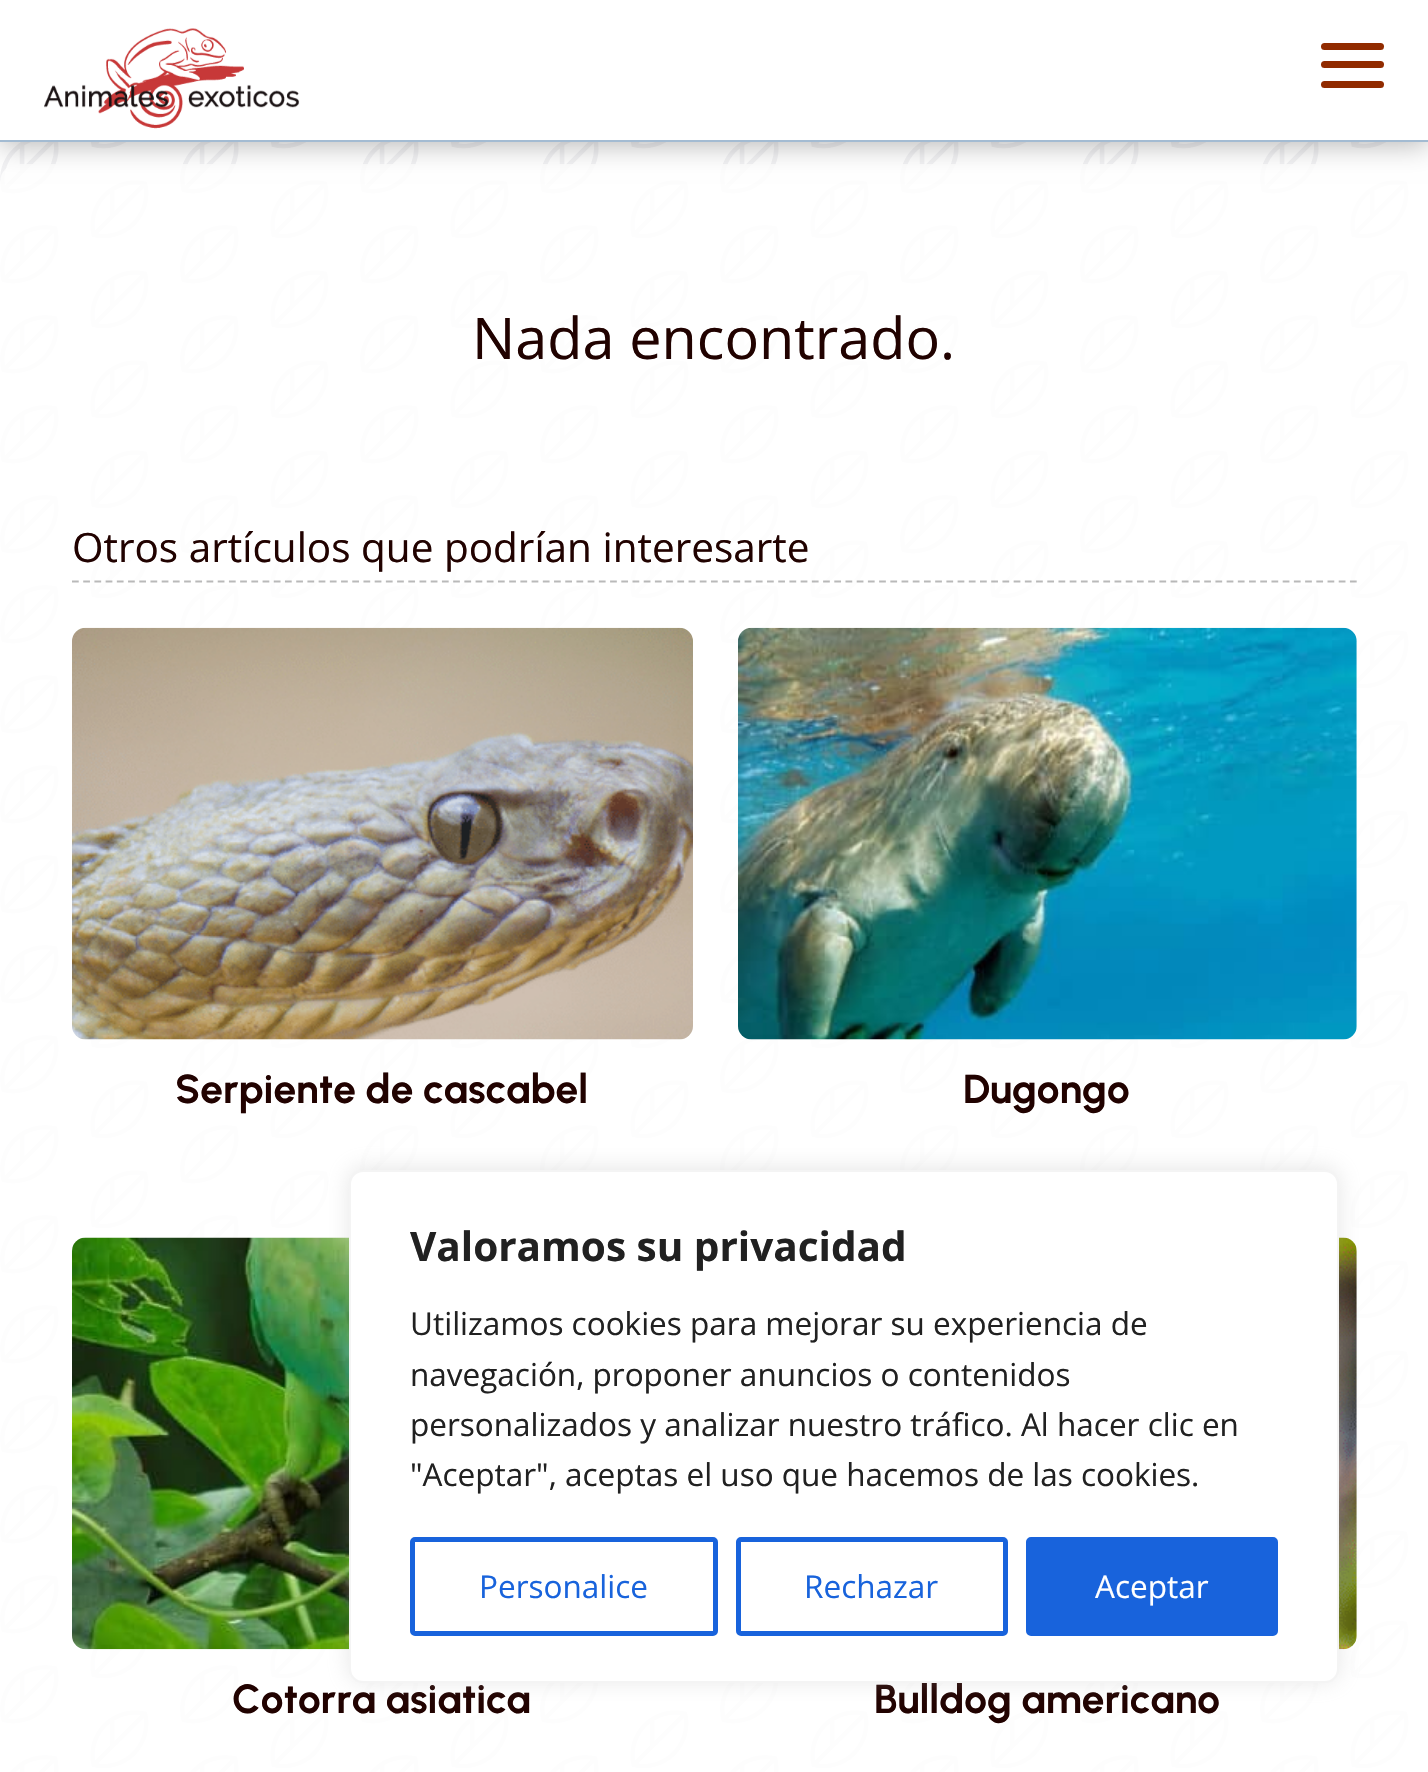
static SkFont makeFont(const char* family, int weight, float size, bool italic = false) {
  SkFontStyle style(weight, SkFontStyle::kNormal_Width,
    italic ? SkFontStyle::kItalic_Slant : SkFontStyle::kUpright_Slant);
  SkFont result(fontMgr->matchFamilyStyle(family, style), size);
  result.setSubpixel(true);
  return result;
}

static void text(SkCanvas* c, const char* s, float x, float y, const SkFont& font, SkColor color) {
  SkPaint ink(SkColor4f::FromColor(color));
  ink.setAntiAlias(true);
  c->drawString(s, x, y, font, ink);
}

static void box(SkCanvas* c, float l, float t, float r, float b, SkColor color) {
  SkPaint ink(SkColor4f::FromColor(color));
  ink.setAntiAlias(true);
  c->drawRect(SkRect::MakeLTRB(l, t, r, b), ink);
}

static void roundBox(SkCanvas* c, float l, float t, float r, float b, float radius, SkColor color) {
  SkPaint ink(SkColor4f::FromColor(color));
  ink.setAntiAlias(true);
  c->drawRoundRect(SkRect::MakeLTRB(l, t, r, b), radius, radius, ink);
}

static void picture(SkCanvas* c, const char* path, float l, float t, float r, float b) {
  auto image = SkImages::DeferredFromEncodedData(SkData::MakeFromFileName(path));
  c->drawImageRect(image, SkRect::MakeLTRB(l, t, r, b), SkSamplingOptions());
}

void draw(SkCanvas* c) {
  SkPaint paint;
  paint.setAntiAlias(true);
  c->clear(0xffffffff);
  picture(c, "img_01.png", 0, 142, 1409, 1772);
  roundBox(c, 0, 164, 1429, 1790, 18, 0xccffffff);
  paint.setColor(0x4d000000);
  paint.setMaskFilter(SkMaskFilter::MakeBlur(kNormal_SkBlurStyle, 13.5f));
  c->drawRect(SkRect::MakeLTRB(0, 2, 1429, 144), paint);
  paint.setMaskFilter(nullptr);
  box(c, 0, 0, 1428, 140, 0xffffffff);
  box(c, 0, 140, 1428, 142, 0xffa3bbd2);
  picture(c, "img_02.png", 44, 28, 300, 129);
  roundBox(c, 1321, 43, 1384, 50, 3.5f, 0xff912b00);
  roundBox(c, 1321, 61, 1384, 68, 3.5f, 0xff912b00);
  roundBox(c, 1321, 81, 1384, 88, 3.5f, 0xff912b00);
  SkFont face1 = makeFont("Open Sans", 400, 57.5f);
  text(c, "Nada encontrado.", 472, 359, face1, 0xff210200);
  paint.setStyle(SkPaint::kStroke_Style);
  paint.setStrokeWidth(2.2f);
  paint.setColor(0x4d161617);
  paint.setPathEffect(SkDashPathEffect::Make({{6.75f, 4.46f}}, 0));
  c->drawPath(SkPathBuilder().moveTo(72, 581.5f).lineTo(1357, 581.5f).detach(), paint);
  paint.setPathEffect(nullptr);
  SkFont face2 = makeFont("Open Sans", 400, 40.5f);
  text(c, "Otros artículos que podrían interesarte", 72, 562, face2, 0xff210200);
  picture(c, "img_03.png", 72, 627, 693, 1040);
  SkFont face3 = makeFont("Urbanist", 700, 40.5f);
  text(c, "Serpiente de cascabel", 175, 1103, face3, 0xff210200);
  picture(c, "img_04.png", 738, 627, 1357, 1040);
  text(c, "Dugongo", 963, 1103, face3, 0xff210200);
  picture(c, "img_05.png", 72, 1237, 349, 1650);
  text(c, "Cotorra asiatica", 232, 1713, face3, 0xff210200);
  picture(c, "img_06.png", 1339, 1237, 1357, 1650);
  text(c, "Bulldog americano", 874, 1713, face3, 0xff210200);
  paint.setStyle(SkPaint::kFill_Style);
  paint.setColor(0x4dacabab);
  paint.setMaskFilter(SkMaskFilter::MakeBlur(kNormal_SkBlurStyle, 11));
  c->drawRoundRect(SkRect::MakeLTRB(349, 1168, 1339, 1681), 14, 14, paint);
  paint.setMaskFilter(nullptr);
  paint.setColor(0xffffffff);
  c->drawRoundRect(SkRect::MakeLTRB(350, 1171, 1338, 1682), 13, 13, paint);
  paint.setStyle(SkPaint::kStroke_Style);
  paint.setStrokeWidth(2);
  paint.setColor(0xfff4f4f4);
  c->drawRoundRect(SkRect::MakeLTRB(350, 1171, 1338, 1682), 13, 13, paint);
  SkFont face4 = makeFont("Open Sans", 700, 40.5f);
  text(c, "Valoramos su privacidad", 410, 1261, face4, 0xff212121);
  SkFont face5 = makeFont("Open Sans", 400, 31.5f);
  text(c, "Utilizamos cookies para mejorar su experiencia de", 410, 1335, face5, 0xff212121);
  text(c, "navegación, proponer anuncios o contenidos", 410, 1386, face5, 0xff212121);
  text(c, "personalizados y analizar nuestro tráfico. Al hacer clic en", 410, 1436, face5, 0xff212121);
  text(c, "\"Aceptar\", aceptas el uso que hacemos de las cookies.", 410, 1486, face5, 0xff212121);
  paint.setStrokeWidth(5);
  paint.setColor(0xff1863dc);
  c->drawRoundRect(SkRect::MakeLTRB(412.5f, 1539.5f, 715.5f, 1633.5f), 2.5f, 2.5f, paint);
  text(c, "Personalice", 479, 1598, face5, 0xff1863dc);
  c->drawRoundRect(SkRect::MakeLTRB(738.5f, 1539.5f, 1005.5f, 1633.5f), 2.5f, 2.5f, paint);
  text(c, "Rechazar", 804, 1598, face5, 0xff1863dc);
  paint.setStyle(SkPaint::kFill_Style);
  c->drawRoundRect(SkRect::MakeLTRB(1028.5f, 1539.5f, 1275.5f, 1633.5f), 2.5f, 2.5f, paint);
  paint.setStyle(SkPaint::kStroke_Style);
  c->drawRoundRect(SkRect::MakeLTRB(1028.5f, 1539.5f, 1275.5f, 1633.5f), 2.5f, 2.5f, paint);
  text(c, "Aceptar", 1095, 1598, face5, 0xffffffff);
}
